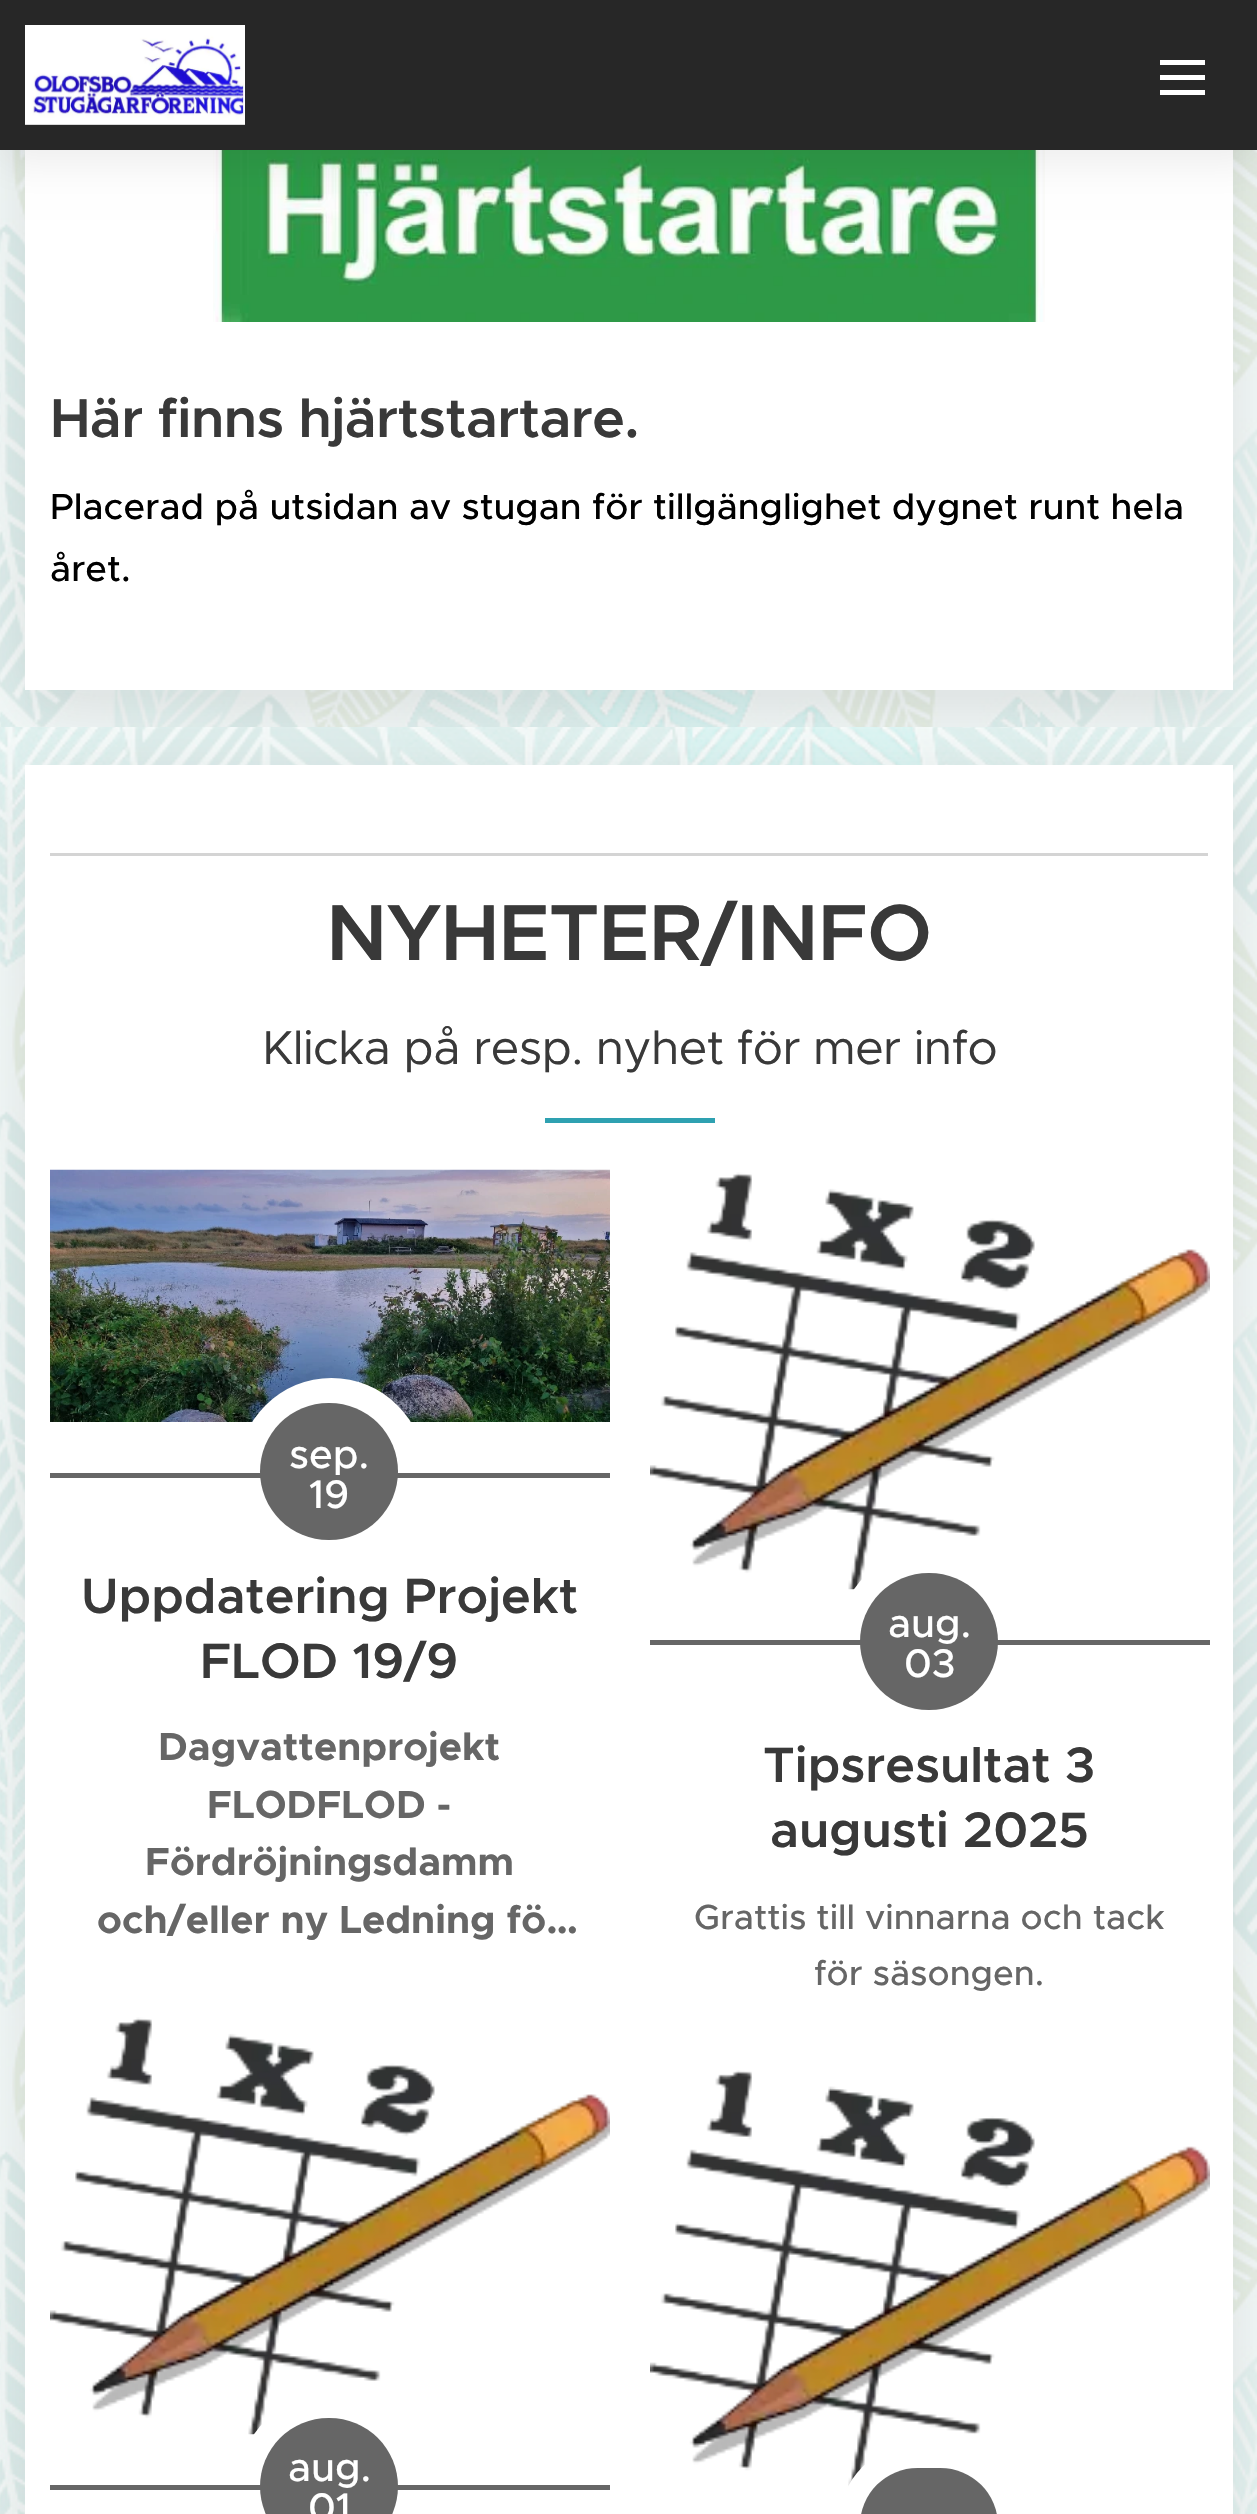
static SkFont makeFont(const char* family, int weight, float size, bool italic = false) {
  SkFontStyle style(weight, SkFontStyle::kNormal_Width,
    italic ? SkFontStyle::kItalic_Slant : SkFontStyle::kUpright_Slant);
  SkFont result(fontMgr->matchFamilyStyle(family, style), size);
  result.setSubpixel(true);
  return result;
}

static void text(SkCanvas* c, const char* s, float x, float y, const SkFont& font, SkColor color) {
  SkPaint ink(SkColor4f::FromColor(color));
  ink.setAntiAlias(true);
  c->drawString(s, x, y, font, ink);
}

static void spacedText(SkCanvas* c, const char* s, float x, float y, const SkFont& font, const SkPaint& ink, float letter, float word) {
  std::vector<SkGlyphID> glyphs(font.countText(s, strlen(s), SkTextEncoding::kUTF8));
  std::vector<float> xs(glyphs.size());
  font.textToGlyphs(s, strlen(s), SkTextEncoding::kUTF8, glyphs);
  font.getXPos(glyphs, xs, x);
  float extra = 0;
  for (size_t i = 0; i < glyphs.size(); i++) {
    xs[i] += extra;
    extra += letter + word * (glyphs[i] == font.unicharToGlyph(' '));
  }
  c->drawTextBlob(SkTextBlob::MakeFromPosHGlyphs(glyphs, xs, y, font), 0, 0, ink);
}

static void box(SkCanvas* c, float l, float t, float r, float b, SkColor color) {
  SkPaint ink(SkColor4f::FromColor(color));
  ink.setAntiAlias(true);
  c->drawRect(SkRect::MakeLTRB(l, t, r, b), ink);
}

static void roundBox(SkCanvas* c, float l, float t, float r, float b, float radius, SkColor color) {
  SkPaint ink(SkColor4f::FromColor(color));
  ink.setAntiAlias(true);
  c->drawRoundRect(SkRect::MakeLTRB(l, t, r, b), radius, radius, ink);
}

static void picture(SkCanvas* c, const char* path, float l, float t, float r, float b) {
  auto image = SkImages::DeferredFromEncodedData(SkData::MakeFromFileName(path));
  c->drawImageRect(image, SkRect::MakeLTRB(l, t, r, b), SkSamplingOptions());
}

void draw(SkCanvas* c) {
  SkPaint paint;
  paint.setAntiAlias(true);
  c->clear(0xffffffff);
  picture(c, "img_02.png", 0, 150, 1257, 727);
  paint.setColor(0x1a000000);
  paint.setMaskFilter(SkMaskFilter::MakeBlur(kNormal_SkBlurStyle, 31));
  c->drawRect(SkRect::MakeLTRB(25, -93, 1233, 710), paint);
  paint.setMaskFilter(nullptr);
  box(c, 25, 150, 1233, 690, 0xffffffff);
  picture(c, "img_03.png", 213, 150, 1045, 322);
  paint.setColor(0x12000000);
  paint.setMaskFilter(SkMaskFilter::MakeBlur(kNormal_SkBlurStyle, 19));
  c->drawRect(SkRect::MakeLTRB(0, 13, 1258, 163), paint);
  paint.setMaskFilter(nullptr);
  box(c, 0, 0, 1257, 150, 0xff272727);
  picture(c, "img_01.png", 25, 25, 245, 125);
  box(c, 1160, 75, 1205, 80, 0xffffffff);
  box(c, 1160, 60, 1205, 65, 0xffffffff);
  box(c, 1160, 90, 1205, 95, 0xffffffff);
  SkFont face1 = makeFont("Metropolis", 600, 55);
  paint.setColor(0xff393939);
  spacedText(c, "Här finns hjärtstartare.", 50, 437, face1, paint, -0.55f, 0);
  SkFont face2 = makeFont("Metropolis", 500, 36.5f);
  text(c, "Placerad på utsidan av stugan för tillgänglighet dygnet runt hela", 50, 519, face2, 0xff000000);
  text(c, "året.", 50, 581, face2, 0xff000000);
  picture(c, "img_04.png", 0, 727, 1257, 2514);
  paint.setColor(0x1a000000);
  paint.setMaskFilter(SkMaskFilter::MakeBlur(kNormal_SkBlurStyle, 31));
  c->drawRect(SkRect::MakeLTRB(25, 785, 1233, 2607), paint);
  paint.setMaskFilter(nullptr);
  box(c, 25, 765, 1233, 2514, 0xffffffff);
  box(c, 50, 853, 1208, 856, 0xffd4d4d4);
  SkFont face3 = makeFont("Metropolis", 600, 79.75f);
  paint.setColor(0xff393939);
  spacedText(c, "NYHETER/INFO", 326, 960, face3, paint, -0.7f, 0);
  SkFont face4 = makeFont("Metropolis", 400, 47.8f);
  spacedText(c, "Klicka på resp. nyhet för mer info", 262, 1064, face4, paint, -0.7f, 0);
  box(c, 545, 1118, 715, 1123, 0xff2ea1b1);
  picture(c, "img_05.png", 50, 1169, 610, 1422);
  paint.setColor(0xffffffff);
  c->drawCircle(331.5f, 1471.5f, 93.5f, paint);
  box(c, 50, 1473, 610, 1478, 0xff666666);
  roundBox(c, 260, 1403, 398, 1540, 68.5f, 0xff666666);
  SkFont face5 = makeFont("Metropolis", 500, 40);
  text(c, "sep.", 289, 1468, face5, 0xffffffff);
  text(c, "19", 309, 1508, face5, 0xffffffff);
  SkFont face6 = makeFont("Metropolis", 600, 50);
  text(c, "Uppdatering Projekt", 81, 1613, face6, 0xff393939);
  text(c, "FLOD 19/9", 200, 1678, face6, 0xff393939);
  SkFont face7 = makeFont("Metropolis", 700, 39.25f);
  text(c, "Dagvattenprojekt", 158, 1760, face7, 0xff666666);
  text(c, "FLODFLOD -", 207, 1818, face7, 0xff666666);
  text(c, "Fördröjningsdamm", 145, 1875, face7, 0xff666666);
  text(c, "och/eller ny Ledning fö…", 97, 1933, face7, 0xff666666);
  picture(c, "img_06.png", 650, 1172, 1210, 1590);
  c->drawCircle(931.5f, 1641.5f, 93.5f, paint);
  box(c, 650, 1640, 1210, 1645, 0xff666666);
  roundBox(c, 860, 1573, 998, 1710, 68.5f, 0xff666666);
  text(c, "aug.", 888, 1637, face5, 0xffffffff);
  text(c, "03", 904, 1677, face5, 0xffffffff);
  text(c, "Tipsresultat 3", 763, 1782, face6, 0xff393939);
  text(c, "augusti 2025", 770, 1847, face6, 0xff393939);
  SkFont face8 = makeFont("Metropolis", 500, 35);
  text(c, "Grattis till vinnarna och tack", 694, 1929, face8, 0xff666666);
  text(c, "för säsongen.", 814, 1985, face8, 0xff666666);
  picture(c, "img_07.png", 50, 2017, 610, 2435);
  c->drawCircle(331.5f, 2486.5f, 93.5f, paint);
  box(c, 50, 2485, 610, 2490, 0xff666666);
  roundBox(c, 260, 2418, 398, 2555, 68.5f, 0xff666666);
  text(c, "aug.", 288, 2481, face5, 0xffffffff);
  text(c, "01", 308, 2521, face5, 0xffffffff);
  picture(c, "img_08.png", 650, 2070, 1210, 2487);
  roundBox(c, 838, 2443, 1025, 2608, 93.5f, 0xffffffff);
  roundBox(c, 860, 2468, 998, 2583, 68.5f, 0xff666666);
}
